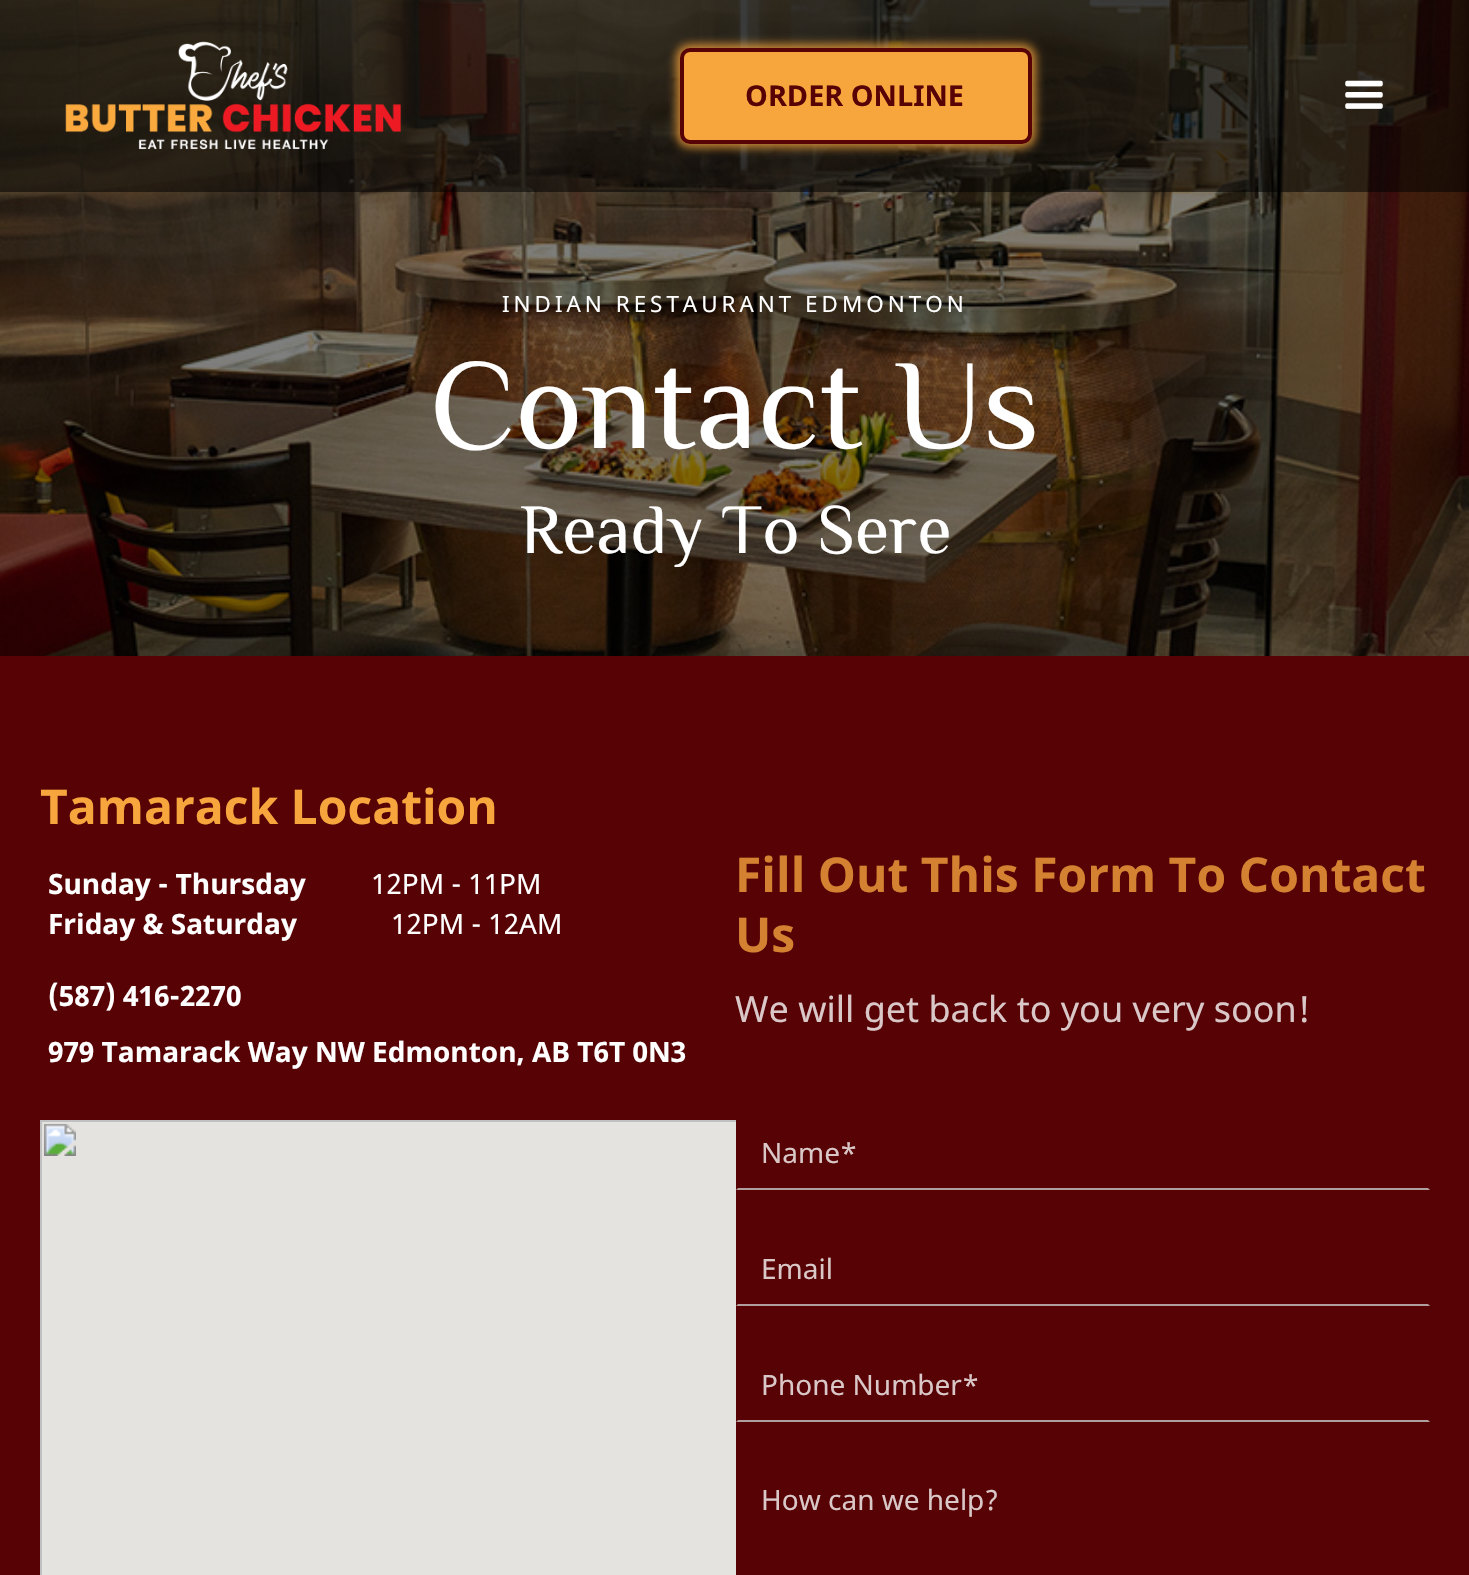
static SkFont makeFont(const char* family, int weight, float size, bool italic = false) {
  SkFontStyle style(weight, SkFontStyle::kNormal_Width,
    italic ? SkFontStyle::kItalic_Slant : SkFontStyle::kUpright_Slant);
  SkFont result(fontMgr->matchFamilyStyle(family, style), size);
  result.setSubpixel(true);
  return result;
}

static void text(SkCanvas* c, const char* s, float x, float y, const SkFont& font, SkColor color) {
  SkPaint ink(SkColor4f::FromColor(color));
  ink.setAntiAlias(true);
  c->drawString(s, x, y, font, ink);
}

static void spacedText(SkCanvas* c, const char* s, float x, float y, const SkFont& font, const SkPaint& ink, float letter, float word) {
  std::vector<SkGlyphID> glyphs(font.countText(s, strlen(s), SkTextEncoding::kUTF8));
  std::vector<float> xs(glyphs.size());
  font.textToGlyphs(s, strlen(s), SkTextEncoding::kUTF8, glyphs);
  font.getXPos(glyphs, xs, x);
  float extra = 0;
  for (size_t i = 0; i < glyphs.size(); i++) {
    xs[i] += extra;
    extra += letter + word * (glyphs[i] == font.unicharToGlyph(' '));
  }
  c->drawTextBlob(SkTextBlob::MakeFromPosHGlyphs(glyphs, xs, y, font), 0, 0, ink);
}

static void box(SkCanvas* c, float l, float t, float r, float b, SkColor color) {
  SkPaint ink(SkColor4f::FromColor(color));
  ink.setAntiAlias(true);
  c->drawRect(SkRect::MakeLTRB(l, t, r, b), ink);
}

static void picture(SkCanvas* c, const char* path, float l, float t, float r, float b) {
  auto image = SkImages::DeferredFromEncodedData(SkData::MakeFromFileName(path));
  c->drawImageRect(image, SkRect::MakeLTRB(l, t, r, b), SkSamplingOptions());
}

void draw(SkCanvas* c) {
  SkPaint paint;
  paint.setAntiAlias(true);
  c->clear(0xff570204);
  picture(c, "img_03.png", 0, 0, 1469, 656);
  box(c, 0, 0, 1469, 192, 0x8a000000);
  picture(c, "img_01.png", 65, 41, 402, 150);
  paint.setColor(0xc7f7a53d);
  paint.setMaskFilter(SkMaskFilter::MakeBlur(kNormal_SkBlurStyle, 5));
  c->drawRoundRect(SkRect::MakeLTRB(676, 44, 1036, 148), 14, 14, paint);
  paint.setMaskFilter(nullptr);
  paint.setColor(0xfff7a53d);
  c->drawRoundRect(SkRect::MakeLTRB(682, 50, 1030, 142), 8, 8, paint);
  paint.setStyle(SkPaint::kStroke_Style);
  paint.setStrokeWidth(4);
  paint.setColor(0xff570204);
  c->drawRoundRect(SkRect::MakeLTRB(682, 50, 1030, 142), 8, 8, paint);
  SkFont face1 = makeFont("Noto Sans", 700, 28.75f);
  text(c, "ORDER ONLINE", 745, 106, face1, 0xff570204);
  picture(c, "img_02.png", 1345, 80, 1383, 109);
  SkFont face2 = makeFont("Noto Sans", 400, 22.4f);
  paint.setStyle(SkPaint::kFill_Style);
  paint.setColor(0xffffffff);
  spacedText(c, "INDIAN RESTAURANT EDMONTON", 502, 312, face2, paint, 4, 0);
  SkFont face3 = makeFont("Philosopher", 400, 128);
  text(c, "Contact Us", 430, 448, face3, 0xffffffff);
  SkFont face4 = makeFont("Philosopher", 400, 70.5f);
  text(c, "Ready To Sere", 520, 553, face4, 0xffffffff);
  SkFont face5 = makeFont("Noto Sans", 700, 48);
  text(c, "Tamarack Location", 40, 824, face5, 0xfff7a53d);
  SkFont face6 = makeFont("Noto Sans", 700, 28);
  text(c, "Sunday - Thursday", 48, 894, face6, 0xffffffff);
  SkFont face7 = makeFont("Noto Sans", 400, 28);
  text(c, "12PM - 11PM", 371, 894, face7, 0xffffffff);
  text(c, "Friday & Saturday", 48, 934, face6, 0xffffffff);
  text(c, "12PM - 12AM", 391, 934, face7, 0xffffffff);
  text(c, "(587) 416-2270", 48, 1006, face6, 0xffffffff);
  text(c, "979 Tamarack Way NW Edmonton, AB T6T 0N3", 48, 1062, face6, 0xffffffff);
  picture(c, "img_04.png", 40, 1120, 736, 1575);
  text(c, "Fill Out This Form To Contact", 735, 892, face5, 0xffd48131);
  text(c, "Us", 735, 952, face5, 0xffd48131);
  SkFont face8 = makeFont("Noto Sans", 400, 36);
  text(c, "We will get back to you very soon!", 735, 1022, face8, 0xffdac8c8);
  paint.setColor(0xffb19e9f);
  c->drawPath(SkPathBuilder().moveTo(1430, 1190).lineTo(736, 1190).lineTo(738, 1188).lineTo(1428, 1188).close().detach(), paint);
  text(c, "Name*", 761, 1163, face7, 0xffdac8c8);
  c->drawPath(SkPathBuilder().moveTo(1430, 1306).lineTo(736, 1306).lineTo(738, 1304).lineTo(1428, 1304).close().detach(), paint);
  text(c, "Email", 761, 1279, face7, 0xffdac8c8);
  c->drawPath(SkPathBuilder().moveTo(1430, 1422).lineTo(736, 1422).lineTo(738, 1420).lineTo(1428, 1420).close().detach(), paint);
  text(c, "Phone Number*", 761, 1395, face7, 0xffdac8c8);
  text(c, "How can we help?", 761, 1510, face7, 0xffdac8c8);
}
